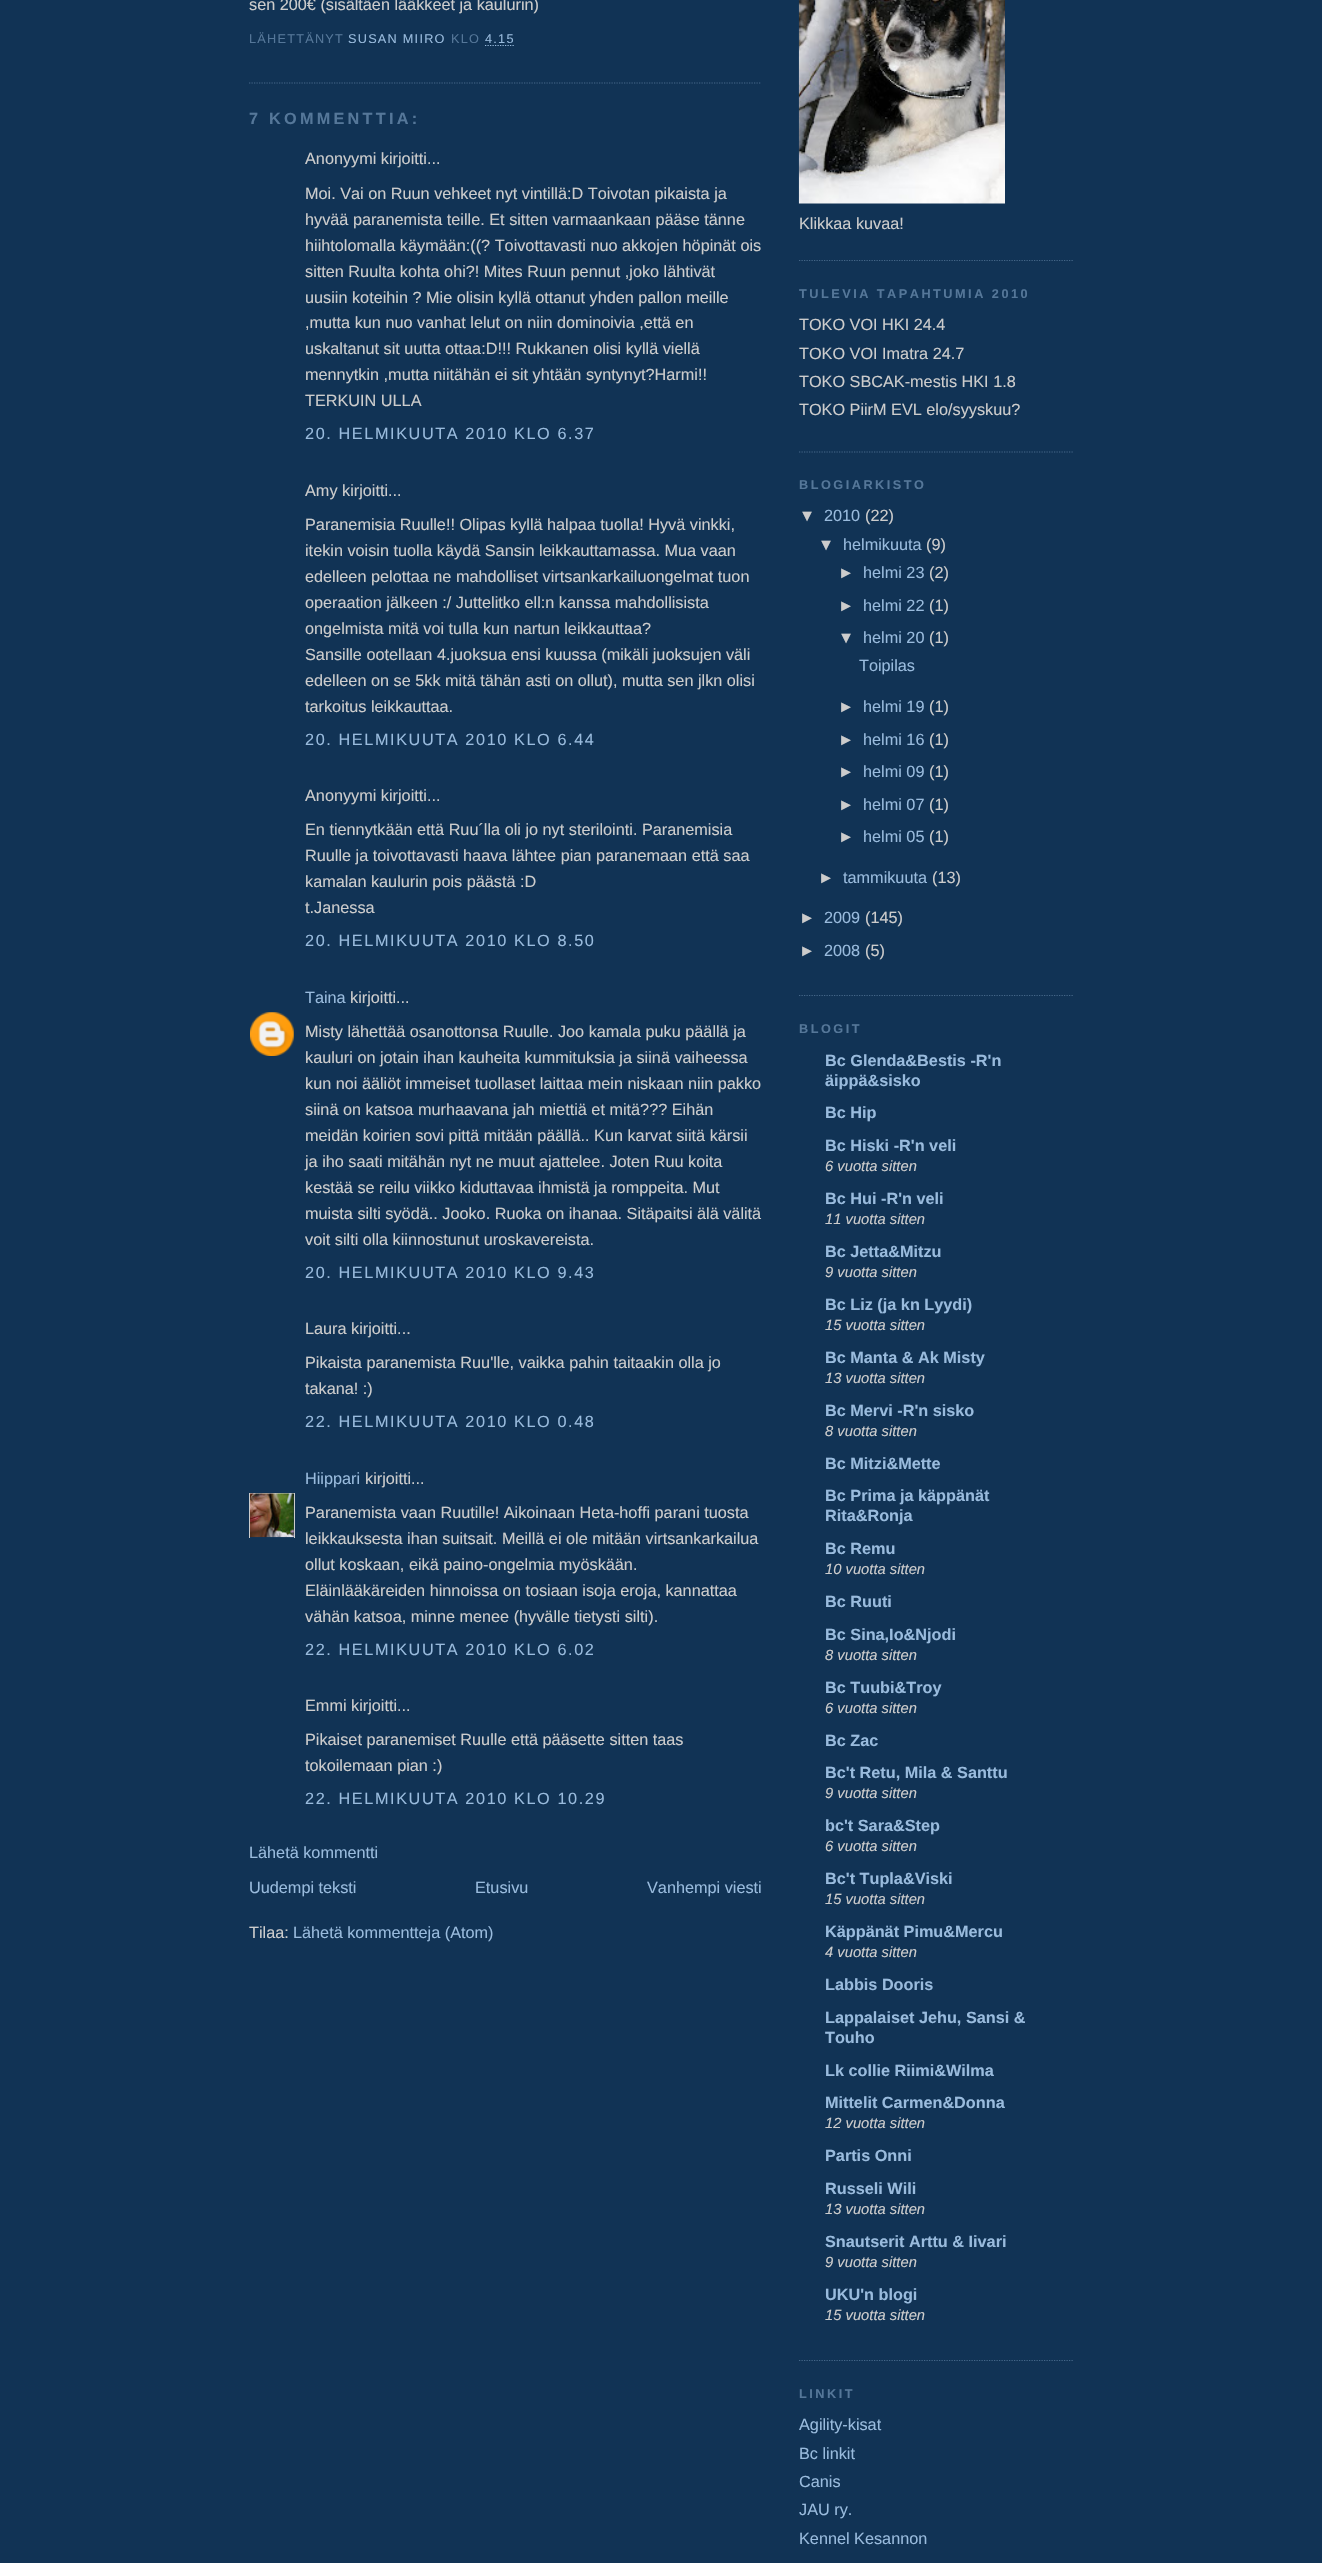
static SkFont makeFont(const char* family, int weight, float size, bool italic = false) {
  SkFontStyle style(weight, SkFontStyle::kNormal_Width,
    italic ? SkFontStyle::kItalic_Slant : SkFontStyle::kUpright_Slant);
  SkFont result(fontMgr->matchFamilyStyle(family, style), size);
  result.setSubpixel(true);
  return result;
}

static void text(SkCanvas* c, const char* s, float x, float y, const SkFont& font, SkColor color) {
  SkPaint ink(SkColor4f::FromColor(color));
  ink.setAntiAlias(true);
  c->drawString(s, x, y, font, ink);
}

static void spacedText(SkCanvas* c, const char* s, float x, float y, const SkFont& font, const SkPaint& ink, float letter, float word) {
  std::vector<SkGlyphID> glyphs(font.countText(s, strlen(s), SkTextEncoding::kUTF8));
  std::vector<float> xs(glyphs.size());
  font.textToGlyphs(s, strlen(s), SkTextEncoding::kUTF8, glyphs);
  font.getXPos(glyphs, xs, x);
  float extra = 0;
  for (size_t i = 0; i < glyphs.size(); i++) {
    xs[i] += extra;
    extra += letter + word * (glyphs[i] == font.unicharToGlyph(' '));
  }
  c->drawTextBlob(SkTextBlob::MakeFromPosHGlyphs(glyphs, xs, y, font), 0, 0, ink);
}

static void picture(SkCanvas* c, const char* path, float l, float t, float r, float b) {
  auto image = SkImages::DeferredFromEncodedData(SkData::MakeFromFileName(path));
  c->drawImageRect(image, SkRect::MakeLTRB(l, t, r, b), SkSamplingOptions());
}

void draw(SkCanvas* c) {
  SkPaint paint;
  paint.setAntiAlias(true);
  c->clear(0xff113355);
  paint.setStyle(SkPaint::kStroke_Style);
  paint.setStrokeWidth(1.2f);
  paint.setColor(0xff446688);
  paint.setPathEffect(SkDashPathEffect::Make({{1.25f, 1.25f}}, 0));
  c->drawPath(SkPathBuilder().moveTo(249, 83).lineTo(761, 83).detach(), paint);
  paint.setPathEffect(nullptr);
  SkFont face1 = makeFont("Liberation Sans", 400, 16.25f);
  text(c, "sen 200€ (sisältäen lääkkeet ja kaulurin)", 249, 10, face1, 0xffcccccc);
  SkFont face2 = makeFont("Liberation Sans", 400, 12.7f);
  paint.setStyle(SkPaint::kFill_Style);
  paint.setColor(0xff557799);
  spacedText(c, "LÄHETTÄNYT", 249, 43, face2, paint, 1.25f, 0);
  paint.setColor(0xff99bbdd);
  spacedText(c, "SUSAN MIIRO", 348, 43, face2, paint, 1.25f, 0);
  paint.setColor(0xff557799);
  spacedText(c, "KLO", 451, 43, face2, paint, 1.25f, 0);
  paint.setColor(0xff99bbdd);
  spacedText(c, "4.15", 485, 43, face2, paint, 1.25f, 0);
  paint.setStyle(SkPaint::kStroke_Style);
  paint.setPathEffect(SkDashPathEffect::Make({{1.25f, 1.25f}}, 0));
  c->drawPath(SkPathBuilder().moveTo(485, 45.5f).lineTo(514.5f, 45.5f).detach(), paint);
  paint.setPathEffect(nullptr);
  SkFont face3 = makeFont("Liberation Sans", 700, 16.25f);
  paint.setStyle(SkPaint::kFill_Style);
  paint.setColor(0xff557799);
  spacedText(c, "7 KOMMENTTIA:", 249, 124, face3, paint, 3.25f, 0);
  text(c, "Anonyymi kirjoitti...", 305, 164, face1, 0xffcccccc);
  text(c, "Moi. Vai on Ruun vehkeet nyt vintillä:D Toivotan pikaista ja", 305, 199, face1, 0xffcccccc);
  text(c, "hyvää paranemista teille. Et sitten varmaankaan pääse tänne", 305, 225, face1, 0xffcccccc);
  text(c, "hiihtolomalla käymään:((? Toivottavasti nuo akkojen höpinät ois", 305, 251, face1, 0xffcccccc);
  text(c, "sitten Ruulta kohta ohi?! Mites Ruun pennut ,joko lähtivät", 305, 277, face1, 0xffcccccc);
  text(c, "uusiin koteihin ? Mie olisin kyllä ottanut yhden pallon meille", 305, 303, face1, 0xffcccccc);
  text(c, ",mutta kun nuo vanhat lelut on niin dominoivia ,että en", 305, 328, face1, 0xffcccccc);
  text(c, "uskaltanut sit uutta ottaa:D!!! Rukkanen olisi kyllä viellä", 305, 354, face1, 0xffcccccc);
  text(c, "mennytkin ,mutta niitähän ei sit yhtään syntynyt?Harmi!!", 305, 380, face1, 0xffcccccc);
  text(c, "TERKUIN ULLA", 305, 406, face1, 0xffcccccc);
  paint.setColor(0xff99bbdd);
  spacedText(c, "20. HELMIKUUTA 2010 KLO 6.37", 305, 439, face1, paint, 1.6f, 0);
  text(c, "Amy kirjoitti...", 305, 496, face1, 0xffcccccc);
  text(c, "Paranemisia Ruulle!! Olipas kyllä halpaa tuolla! Hyvä vinkki,", 305, 530, face1, 0xffcccccc);
  text(c, "itekin voisin tuolla käydä Sansin leikkauttamassa. Mua vaan", 305, 556, face1, 0xffcccccc);
  text(c, "edelleen pelottaa ne mahdolliset virtsankarkailuongelmat tuon", 305, 582, face1, 0xffcccccc);
  text(c, "operaation jälkeen :/ Juttelitko ell:n kanssa mahdollisista", 305, 608, face1, 0xffcccccc);
  text(c, "ongelmista mitä voi tulla kun nartun leikkauttaa?", 305, 634, face1, 0xffcccccc);
  text(c, "Sansille ootellaan 4.juoksua ensi kuussa (mikäli juoksujen väli", 305, 660, face1, 0xffcccccc);
  text(c, "edelleen on se 5kk mitä tähän asti on ollut), mutta sen jlkn olisi", 305, 686, face1, 0xffcccccc);
  text(c, "tarkoitus leikkauttaa.", 305, 712, face1, 0xffcccccc);
  spacedText(c, "20. HELMIKUUTA 2010 KLO 6.44", 305, 745, face1, paint, 1.6f, 0);
  text(c, "Anonyymi kirjoitti...", 305, 801, face1, 0xffcccccc);
  text(c, "En tiennytkään että Ruu´lla oli jo nyt sterilointi. Paranemisia", 305, 835, face1, 0xffcccccc);
  text(c, "Ruulle ja toivottavasti haava lähtee pian paranemaan että saa", 305, 861, face1, 0xffcccccc);
  text(c, "kamalan kaulurin pois päästä :D", 305, 887, face1, 0xffcccccc);
  text(c, "t.Janessa", 305, 913, face1, 0xffcccccc);
  spacedText(c, "20. HELMIKUUTA 2010 KLO 8.50", 305, 946, face1, paint, 1.6f, 0);
  text(c, "Taina", 305, 1003, face1, 0xff99bbdd);
  text(c, "kirjoitti...", 350, 1003, face1, 0xffcccccc);
  picture(c, "img_01.png", 250, 1012, 294, 1056);
  text(c, "Misty lähettää osanottonsa Ruulle. Joo kamala puku päällä ja", 305, 1037, face1, 0xffcccccc);
  text(c, "kauluri on jotain ihan kauheita kummituksia ja siinä vaiheessa", 305, 1063, face1, 0xffcccccc);
  text(c, "kun noi ääliöt immeiset tuollaset laittaa mein niskaan niin pakko", 305, 1089, face1, 0xffcccccc);
  text(c, "siinä on katsoa murhaavana jah miettiä et mitä?\077? Eihän", 305, 1115, face1, 0xffcccccc);
  text(c, "meidän koirien sovi pittä mitään päällä.. Kun karvat siitä kärsii", 305, 1141, face1, 0xffcccccc);
  text(c, "ja iho saati mitähän nyt ne muut ajattelee. Joten Ruu koita", 305, 1167, face1, 0xffcccccc);
  text(c, "kestää se reilu viikko kiduttavaa ihmistä ja romppeita. Mut", 305, 1193, face1, 0xffcccccc);
  text(c, "muista silti syödä.. Jooko. Ruoka on ihanaa. Sitäpaitsi älä välitä", 305, 1219, face1, 0xffcccccc);
  text(c, "voit silti olla kiinnostunut uroskavereista.", 305, 1245, face1, 0xffcccccc);
  spacedText(c, "20. HELMIKUUTA 2010 KLO 9.43", 305, 1278, face1, paint, 1.6f, 0);
  text(c, "Laura kirjoitti...", 305, 1334, face1, 0xffcccccc);
  text(c, "Pikaista paranemista Ruu'lle, vaikka pahin taitaakin olla jo", 305, 1368, face1, 0xffcccccc);
  text(c, "takana! :)", 305, 1394, face1, 0xffcccccc);
  spacedText(c, "22. HELMIKUUTA 2010 KLO 0.48", 305, 1427, face1, paint, 1.6f, 0);
  text(c, "Hiippari", 305, 1484, face1, 0xff99bbdd);
  text(c, "kirjoitti...", 365, 1484, face1, 0xffcccccc);
  c->save();
  c->clipRect(SkRect::MakeLTRB(249, 1493, 295, 1538));
  paint.setStyle(SkPaint::kStroke_Style);
  paint.setStrokeWidth(1);
  paint.setColor(0xffcccccc);
  c->drawRect(SkRect::MakeLTRB(249.5f, 1493.5f, 294.5f, 1538.5f), paint);
  c->restore();
  picture(c, "img_02.png", 250, 1493, 294, 1538);
  text(c, "Paranemista vaan Ruutille! Aikoinaan Heta-hoffi parani tuosta", 305, 1518, face1, 0xffcccccc);
  text(c, "leikkauksesta ihan suitsait. Meillä ei ole mitään virtsankarkailua", 305, 1544, face1, 0xffcccccc);
  text(c, "ollut koskaan, eikä paino-ongelmia myöskään.", 305, 1570, face1, 0xffcccccc);
  text(c, "Eläinlääkäreiden hinnoissa on tosiaan isoja eroja, kannattaa", 305, 1596, face1, 0xffcccccc);
  text(c, "vähän katsoa, minne menee (hyvälle tietysti silti).", 305, 1622, face1, 0xffcccccc);
  paint.setStyle(SkPaint::kFill_Style);
  paint.setColor(0xff99bbdd);
  spacedText(c, "22. HELMIKUUTA 2010 KLO 6.02", 305, 1655, face1, paint, 1.6f, 0);
  text(c, "Emmi kirjoitti...", 305, 1711, face1, 0xffcccccc);
  text(c, "Pikaiset paranemiset Ruulle että pääsette sitten taas", 305, 1745, face1, 0xffcccccc);
  text(c, "tokoilemaan pian :)", 305, 1771, face1, 0xffcccccc);
  spacedText(c, "22. HELMIKUUTA 2010 KLO 10.29", 305, 1804, face1, paint, 1.6f, 0);
  text(c, "Lähetä kommentti", 249, 1858, face1, 0xff99bbdd);
  text(c, "Uudempi teksti", 249, 1893, face1, 0xff99bbdd);
  text(c, "Etusivu", 475, 1893, face1, 0xff99bbdd);
  text(c, "Vanhempi viesti", 647, 1893, face1, 0xff99bbdd);
  text(c, "Tilaa:", 249, 1938, face1, 0xffcccccc);
  text(c, "Lähetä kommentteja (Atom)", 293, 1938, face1, 0xff99bbdd);
  paint.setStyle(SkPaint::kStroke_Style);
  paint.setStrokeWidth(1.2f);
  paint.setColor(0xff446688);
  paint.setPathEffect(SkDashPathEffect::Make({{1.25f, 1.25f}}, 0));
  c->drawPath(SkPathBuilder().moveTo(799, 260.5f).lineTo(1074, 260.5f).detach(), paint);
  paint.setPathEffect(nullptr);
  picture(c, "img_03.png", 798, 0, 1005, 204);
  text(c, "Klikkaa kuvaa!", 799, 229, face1, 0xffcccccc);
  paint.setPathEffect(SkDashPathEffect::Make({{1.25f, 1.25f}}, 0));
  c->drawPath(SkPathBuilder().moveTo(799, 452).lineTo(1074, 452).detach(), paint);
  paint.setPathEffect(nullptr);
  SkFont face4 = makeFont("Liberation Sans", 700, 12.7f);
  paint.setStyle(SkPaint::kFill_Style);
  paint.setColor(0xff557799);
  spacedText(c, "TULEVIA TAPAHTUMIA 2010", 799, 298, face4, paint, 2.5f, 0);
  text(c, "TOKO VOI HKI 24.4", 799, 330, face1, 0xffcccccc);
  text(c, "TOKO VOI Imatra 24.7", 799, 359, face1, 0xffcccccc);
  text(c, "TOKO SBCAK-mestis HKI 1.8", 799, 387, face1, 0xffcccccc);
  text(c, "TOKO PiirM EVL elo/syyskuu?", 799, 415, face1, 0xffcccccc);
  paint.setStyle(SkPaint::kStroke_Style);
  paint.setColor(0xff446688);
  paint.setPathEffect(SkDashPathEffect::Make({{1.25f, 1.25f}}, 0));
  c->drawPath(SkPathBuilder().moveTo(799, 995.5f).lineTo(1074, 995.5f).detach(), paint);
  paint.setPathEffect(nullptr);
  paint.setStyle(SkPaint::kFill_Style);
  paint.setColor(0xff557799);
  spacedText(c, "BLOGIARKISTO", 799, 489, face4, paint, 2.5f, 0);
  text(c, "▼", 799, 521, face1, 0xffcccccc);
  text(c, "2010", 824, 521, face1, 0xff99bbdd);
  text(c, "(22)", 865, 521, face1, 0xffcccccc);
  text(c, "▼", 818, 550, face1, 0xffcccccc);
  text(c, "helmikuuta", 843, 550, face1, 0xff99bbdd);
  text(c, "(9)", 926, 550, face1, 0xffcccccc);
  text(c, "►", 838, 578, face1, 0xffcccccc);
  text(c, "helmi 23", 863, 578, face1, 0xff99bbdd);
  text(c, "(2)", 929, 578, face1, 0xffcccccc);
  text(c, "►", 838, 611, face1, 0xffcccccc);
  text(c, "helmi 22", 863, 611, face1, 0xff99bbdd);
  text(c, "(1)", 929, 611, face1, 0xffcccccc);
  text(c, "▼", 838, 643, face1, 0xffcccccc);
  text(c, "helmi 20", 863, 643, face1, 0xff99bbdd);
  text(c, "(1)", 929, 643, face1, 0xffcccccc);
  text(c, "Toipilas", 859, 671, face1, 0xff99bbdd);
  text(c, "►", 838, 712, face1, 0xffcccccc);
  text(c, "helmi 19", 863, 712, face1, 0xff99bbdd);
  text(c, "(1)", 929, 712, face1, 0xffcccccc);
  text(c, "►", 838, 745, face1, 0xffcccccc);
  text(c, "helmi 16", 863, 745, face1, 0xff99bbdd);
  text(c, "(1)", 929, 745, face1, 0xffcccccc);
  text(c, "►", 838, 777, face1, 0xffcccccc);
  text(c, "helmi 09", 863, 777, face1, 0xff99bbdd);
  text(c, "(1)", 929, 777, face1, 0xffcccccc);
  text(c, "►", 838, 810, face1, 0xffcccccc);
  text(c, "helmi 07", 863, 810, face1, 0xff99bbdd);
  text(c, "(1)", 929, 810, face1, 0xffcccccc);
  text(c, "►", 838, 842, face1, 0xffcccccc);
  text(c, "helmi 05", 863, 842, face1, 0xff99bbdd);
  text(c, "(1)", 929, 842, face1, 0xffcccccc);
  text(c, "►", 818, 883, face1, 0xffcccccc);
  text(c, "tammikuuta", 843, 883, face1, 0xff99bbdd);
  text(c, "(13)", 932, 883, face1, 0xffcccccc);
  text(c, "►", 799, 923, face1, 0xffcccccc);
  text(c, "2009", 824, 923, face1, 0xff99bbdd);
  text(c, "(145)", 865, 923, face1, 0xffcccccc);
  text(c, "►", 799, 956, face1, 0xffcccccc);
  text(c, "2008", 824, 956, face1, 0xff99bbdd);
  text(c, "(5)", 865, 956, face1, 0xffcccccc);
  paint.setStyle(SkPaint::kStroke_Style);
  paint.setColor(0xff446688);
  paint.setPathEffect(SkDashPathEffect::Make({{1.25f, 1.25f}}, 0));
  c->drawPath(SkPathBuilder().moveTo(799, 2360.5f).lineTo(1074, 2360.5f).detach(), paint);
  paint.setPathEffect(nullptr);
  paint.setStyle(SkPaint::kFill_Style);
  paint.setColor(0xff557799);
  spacedText(c, "BLOGIT", 799, 1033, face4, paint, 2.5f, 0);
  text(c, "Bc Glenda&Bestis -R'n", 825, 1066, face3, 0xff99bbdd);
  text(c, "äippä&sisko", 825, 1086, face3, 0xff99bbdd);
  text(c, "Bc Hip", 825, 1118, face3, 0xff99bbdd);
  text(c, "Bc Hiski -R'n veli", 825, 1151, face3, 0xff99bbdd);
  SkFont face5 = makeFont("Liberation Sans", 400, 14.75f, true);
  text(c, "6 vuotta sitten", 825, 1171, face5, 0xffcccccc);
  text(c, "Bc Hui -R'n veli", 825, 1204, face3, 0xff99bbdd);
  text(c, "11 vuotta sitten", 825, 1224, face5, 0xffcccccc);
  text(c, "Bc Jetta&Mitzu", 825, 1257, face3, 0xff99bbdd);
  text(c, "9 vuotta sitten", 825, 1277, face5, 0xffcccccc);
  text(c, "Bc Liz (ja kn Lyydi)", 825, 1310, face3, 0xff99bbdd);
  text(c, "15 vuotta sitten", 825, 1330, face5, 0xffcccccc);
  text(c, "Bc Manta & Ak Misty", 825, 1363, face3, 0xff99bbdd);
  text(c, "13 vuotta sitten", 825, 1383, face5, 0xffcccccc);
  text(c, "Bc Mervi -R'n sisko", 825, 1416, face3, 0xff99bbdd);
  text(c, "8 vuotta sitten", 825, 1436, face5, 0xffcccccc);
  text(c, "Bc Mitzi&Mette", 825, 1469, face3, 0xff99bbdd);
  text(c, "Bc Prima ja käppänät", 825, 1501, face3, 0xff99bbdd);
  text(c, "Rita&Ronja", 825, 1521, face3, 0xff99bbdd);
  text(c, "Bc Remu", 825, 1554, face3, 0xff99bbdd);
  text(c, "10 vuotta sitten", 825, 1574, face5, 0xffcccccc);
  text(c, "Bc Ruuti", 825, 1607, face3, 0xff99bbdd);
  text(c, "Bc Sina,Io&Njodi", 825, 1640, face3, 0xff99bbdd);
  text(c, "8 vuotta sitten", 825, 1660, face5, 0xffcccccc);
  text(c, "Bc Tuubi&Troy", 825, 1693, face3, 0xff99bbdd);
  text(c, "6 vuotta sitten", 825, 1713, face5, 0xffcccccc);
  text(c, "Bc Zac", 825, 1746, face3, 0xff99bbdd);
  text(c, "Bc't Retu, Mila & Santtu", 825, 1778, face3, 0xff99bbdd);
  text(c, "9 vuotta sitten", 825, 1798, face5, 0xffcccccc);
  text(c, "bc't Sara&Step", 825, 1831, face3, 0xff99bbdd);
  text(c, "6 vuotta sitten", 825, 1851, face5, 0xffcccccc);
  text(c, "Bc't Tupla&Viski", 825, 1884, face3, 0xff99bbdd);
  text(c, "15 vuotta sitten", 825, 1904, face5, 0xffcccccc);
  text(c, "Käppänät Pimu&Mercu", 825, 1937, face3, 0xff99bbdd);
  text(c, "4 vuotta sitten", 825, 1957, face5, 0xffcccccc);
  text(c, "Labbis Dooris", 825, 1990, face3, 0xff99bbdd);
  text(c, "Lappalaiset Jehu, Sansi &", 825, 2023, face3, 0xff99bbdd);
  text(c, "Touho", 825, 2043, face3, 0xff99bbdd);
  text(c, "Lk collie Riimi&Wilma", 825, 2076, face3, 0xff99bbdd);
  text(c, "Mittelit Carmen&Donna", 825, 2108, face3, 0xff99bbdd);
  text(c, "12 vuotta sitten", 825, 2128, face5, 0xffcccccc);
  text(c, "Partis Onni", 825, 2161, face3, 0xff99bbdd);
  text(c, "Russeli Wili", 825, 2194, face3, 0xff99bbdd);
  text(c, "13 vuotta sitten", 825, 2214, face5, 0xffcccccc);
  text(c, "Snautserit Arttu & Iivari", 825, 2247, face3, 0xff99bbdd);
  text(c, "9 vuotta sitten", 825, 2267, face5, 0xffcccccc);
  text(c, "UKU'n blogi", 825, 2300, face3, 0xff99bbdd);
  text(c, "15 vuotta sitten", 825, 2320, face5, 0xffcccccc);
  spacedText(c, "LINKIT", 799, 2398, face4, paint, 2.5f, 0);
  text(c, "Agility-kisat", 799, 2430, face1, 0xff99bbdd);
  text(c, "Bc linkit", 799, 2459, face1, 0xff99bbdd);
  text(c, "Canis", 799, 2487, face1, 0xff99bbdd);
  text(c, "JAU ry.", 799, 2515, face1, 0xff99bbdd);
  text(c, "Kennel Kesannon", 799, 2544, face1, 0xff99bbdd);
}
